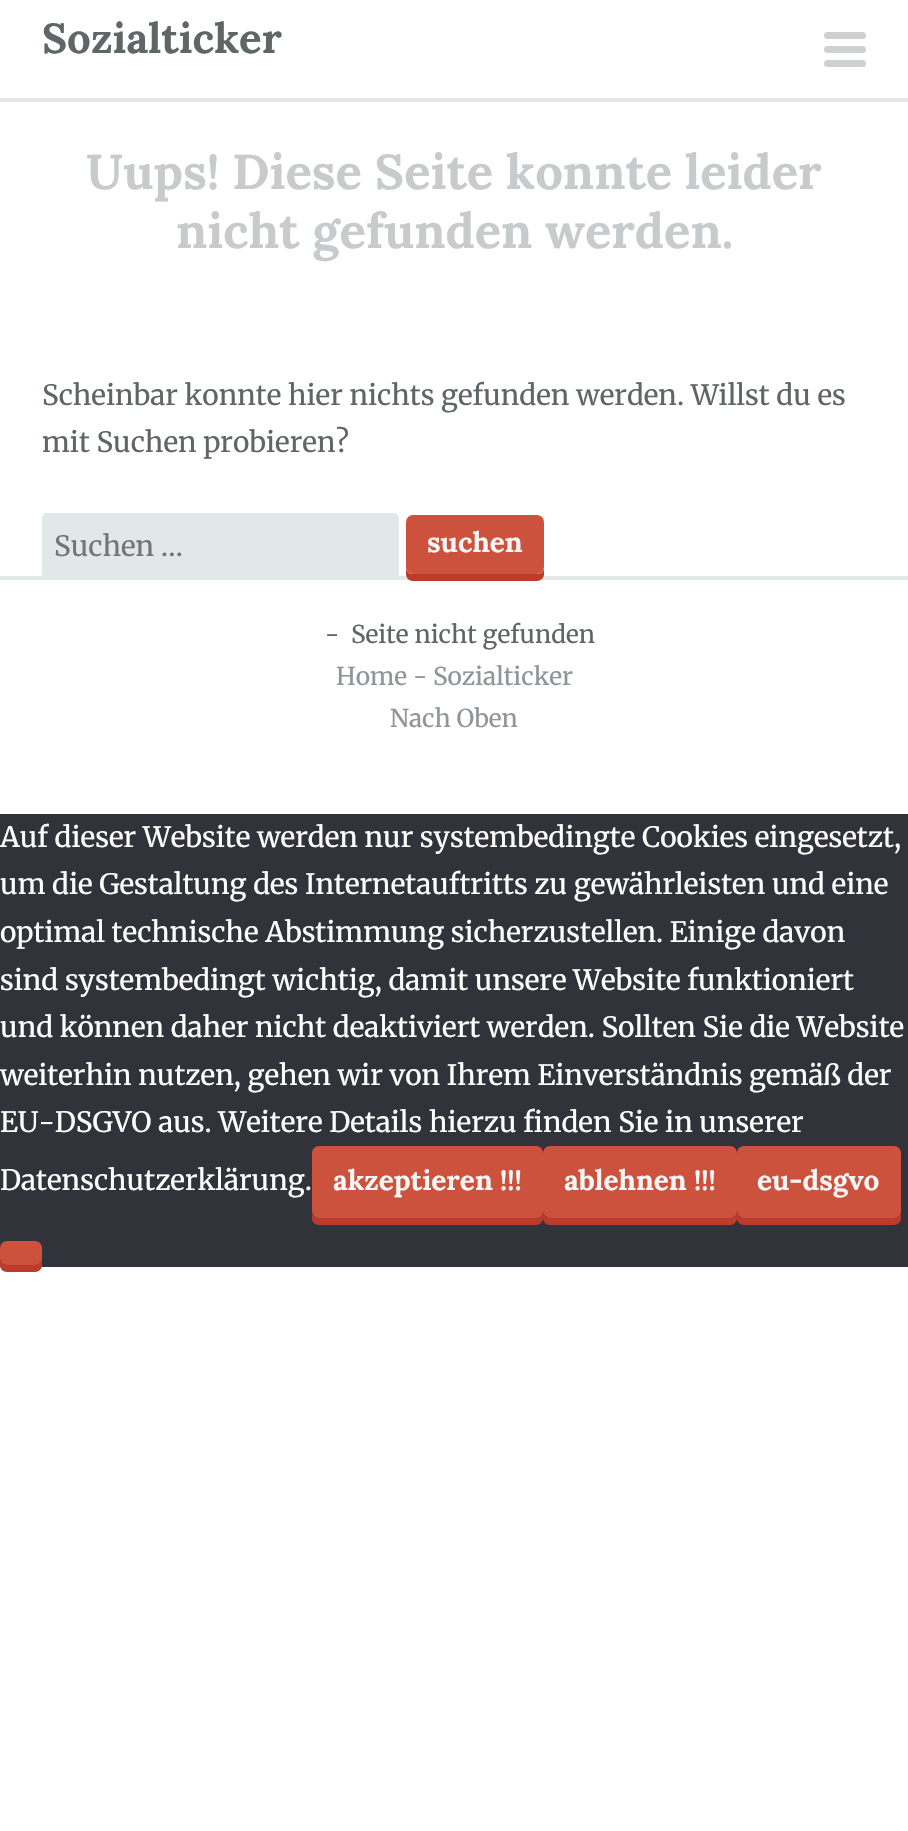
static SkFont makeFont(const char* family, int weight, float size, bool italic = false) {
  SkFontStyle style(weight, SkFontStyle::kNormal_Width,
    italic ? SkFontStyle::kItalic_Slant : SkFontStyle::kUpright_Slant);
  SkFont result(fontMgr->matchFamilyStyle(family, style), size);
  result.setSubpixel(true);
  return result;
}

static void text(SkCanvas* c, const char* s, float x, float y, const SkFont& font, SkColor color) {
  SkPaint ink(SkColor4f::FromColor(color));
  ink.setAntiAlias(true);
  c->drawString(s, x, y, font, ink);
}

static void box(SkCanvas* c, float l, float t, float r, float b, SkColor color) {
  SkPaint ink(SkColor4f::FromColor(color));
  ink.setAntiAlias(true);
  c->drawRect(SkRect::MakeLTRB(l, t, r, b), ink);
}

static void roundBox(SkCanvas* c, float l, float t, float r, float b, float radius, SkColor color) {
  SkPaint ink(SkColor4f::FromColor(color));
  ink.setAntiAlias(true);
  c->drawRoundRect(SkRect::MakeLTRB(l, t, r, b), radius, radius, ink);
}

void draw(SkCanvas* c) {
  SkPaint paint;
  paint.setAntiAlias(true);
  c->clear(0xffffffff);
  box(c, 0, 98, 908, 102, 0xffe2e7e8);
  SkFont face1 = makeFont("Lora", 700, 42);
  text(c, "Sozialticker", 42, 53, face1, 0xff606666);
  SkFont face2 = makeFont("Lora", 700, 49);
  text(c, "Uups! Diese Seite konnte leider", 86, 189, face2, 0xffc8cbcc);
  text(c, "nicht gefunden werden.", 176, 248, face2, 0xffc8cbcc);
  SkFont face3 = makeFont("Merriweather", 400, 28);
  text(c, "Scheinbar konnte hier nichts gefunden werden. Willst du es", 42, 405, face3, 0xff606666);
  text(c, "mit Suchen probieren?", 42, 452, face3, 0xff606666);
  box(c, 0, 576, 908, 580, 0xffe2e7e8);
  paint.setColor(0xffe2e7e8);
  c->drawRoundRect(SkRect::MakeLTRB(43, 514, 398, 578), 4, 4, paint);
  paint.setStyle(SkPaint::kStroke_Style);
  paint.setStrokeWidth(2);
  c->drawRoundRect(SkRect::MakeLTRB(43, 514, 398, 578), 4, 4, paint);
  text(c, "Suchen …", 54, 556, face3, 0xff757575);
  paint.setStyle(SkPaint::kFill_Style);
  paint.setColor(0xffbc3b2d);
  c->drawPath(SkPathBuilder().moveTo(406, 567).lineTo(406, 574).cubicTo(406, 578, 409, 581, 413, 581).lineTo(537, 581).cubicTo(541, 581, 544, 578, 544, 574).lineTo(544, 569).cubicTo(543, 572, 540, 574, 537, 574).lineTo(413, 574).cubicTo(409, 574, 406, 571, 406, 567).close().detach(), paint);
  roundBox(c, 406, 515, 544, 574, 7, 0xffcc523e);
  SkFont face4 = makeFont("Lora", 700, 28);
  text(c, "suchen", 427, 552, face4, 0xfff5f7f7);
  SkFont face5 = makeFont("Merriweather", 400, 24.5f);
  text(c, "-", 325, 643, face5, 0xff606666);
  text(c, "Seite nicht gefunden", 351, 643, face5, 0xff606666);
  text(c, "Home - Sozialticker", 336, 685, face5, 0xff8f9699);
  text(c, "Nach Oben", 390, 727, face5, 0xff8f9699);
  roundBox(c, 824, 46, 866, 53, 3.5f, 0xffcfd1d1);
  roundBox(c, 824, 32, 866, 39, 3.5f, 0xffcfd1d1);
  roundBox(c, 824, 60, 866, 67, 3.5f, 0xffcfd1d1);
  box(c, 0, 814, 908, 1267, 0xff32323a);
  text(c, "Auf dieser Website werden nur systembedingte Cookies eingesetzt,", 0, 847, face3, 0xffffffff);
  text(c, "um die Gestaltung des Internetauftritts zu gewährleisten und eine", 0, 894, face3, 0xffffffff);
  text(c, "optimal technische Abstimmung sicherzustellen. Einige davon", 0, 942, face3, 0xffffffff);
  text(c, "sind systembedingt wichtig, damit unsere Website funktioniert", 0, 990, face3, 0xffffffff);
  text(c, "und können daher nicht deaktiviert werden. Sollten Sie die Website", 0, 1037, face3, 0xffffffff);
  text(c, "weiterhin nutzen, gehen wir von Ihrem Einverständnis gemäß der", 0, 1085, face3, 0xffffffff);
  text(c, "EU-DSGVO aus. Weitere Details hierzu finden Sie in unserer", 0, 1132, face3, 0xffffffff);
  text(c, "Datenschutzerklärung.", 0, 1190, face3, 0xffffffff);
  c->drawPath(SkPathBuilder().moveTo(312, 1214).lineTo(312, 1218).cubicTo(312, 1222, 315, 1225, 319, 1225).lineTo(536, 1225).cubicTo(540, 1225, 543, 1222, 543, 1218).lineTo(543, 1160).lineTo(542, 1157).lineTo(542, 1211).cubicTo(542, 1215, 539, 1218, 536, 1218).lineTo(318, 1218).cubicTo(316, 1218, 313, 1216, 312, 1214).close().detach(), paint);
  roundBox(c, 312, 1146, 543, 1218, 7, 0xffcc523e);
  text(c, "akzeptieren !!!", 333, 1190, face4, 0xfff5f7f7);
  c->drawPath(SkPathBuilder().moveTo(543, 1214).lineTo(543, 1218).cubicTo(543, 1222, 546, 1225, 550, 1225).lineTo(730, 1225).cubicTo(734, 1225, 737, 1222, 737, 1218).lineTo(737, 1158).lineTo(737, 1211).cubicTo(737, 1215, 734, 1218, 730, 1218).lineTo(550, 1218).cubicTo(547, 1218, 544, 1216, 543, 1214).close().detach(), paint);
  roundBox(c, 543, 1146, 737, 1218, 7, 0xffcc523e);
  text(c, "ablehnen !!!", 564, 1190, face4, 0xfff5f7f7);
  c->drawPath(SkPathBuilder().moveTo(737, 1213).lineTo(737, 1218).cubicTo(737, 1222, 740, 1225, 744, 1225).lineTo(894, 1225).cubicTo(898, 1225, 901, 1222, 901, 1218).lineTo(901, 1213).cubicTo(900, 1216, 897, 1218, 894, 1218).lineTo(744, 1218).cubicTo(741, 1218, 738, 1216, 737, 1213).close().detach(), paint);
  roundBox(c, 737, 1146, 901, 1218, 7, 0xffcc523e);
  text(c, "eu-dsgvo", 757, 1190, face4, 0xfff5f7f7);
  c->drawPath(SkPathBuilder().moveTo(0, 1258).lineTo(0, 1265).cubicTo(0, 1269, 3, 1272, 7, 1272).lineTo(35, 1272).cubicTo(39, 1272, 42, 1269, 42, 1265).lineTo(42, 1258).cubicTo(42, 1262, 39, 1265, 35, 1265).lineTo(7, 1265).cubicTo(3, 1265, 0, 1262, 0, 1258).close().detach(), paint);
  roundBox(c, 0, 1241, 42, 1265, 7, 0xffcc523e);
}
